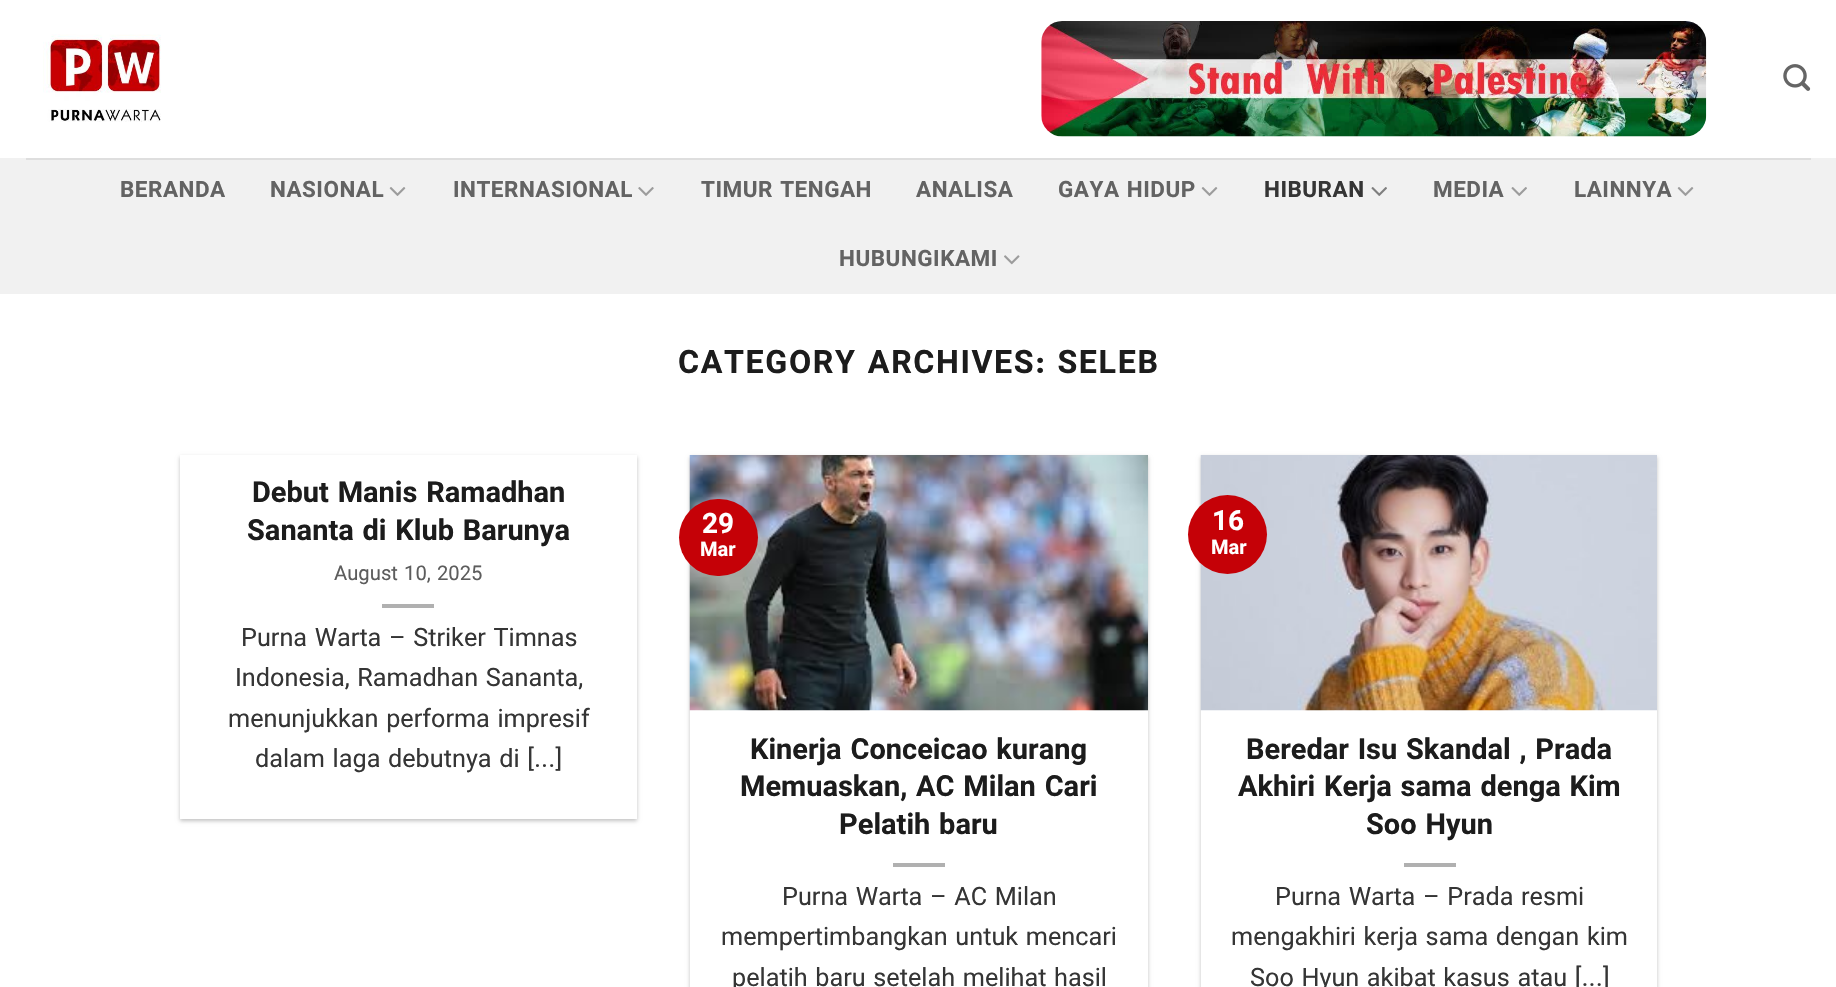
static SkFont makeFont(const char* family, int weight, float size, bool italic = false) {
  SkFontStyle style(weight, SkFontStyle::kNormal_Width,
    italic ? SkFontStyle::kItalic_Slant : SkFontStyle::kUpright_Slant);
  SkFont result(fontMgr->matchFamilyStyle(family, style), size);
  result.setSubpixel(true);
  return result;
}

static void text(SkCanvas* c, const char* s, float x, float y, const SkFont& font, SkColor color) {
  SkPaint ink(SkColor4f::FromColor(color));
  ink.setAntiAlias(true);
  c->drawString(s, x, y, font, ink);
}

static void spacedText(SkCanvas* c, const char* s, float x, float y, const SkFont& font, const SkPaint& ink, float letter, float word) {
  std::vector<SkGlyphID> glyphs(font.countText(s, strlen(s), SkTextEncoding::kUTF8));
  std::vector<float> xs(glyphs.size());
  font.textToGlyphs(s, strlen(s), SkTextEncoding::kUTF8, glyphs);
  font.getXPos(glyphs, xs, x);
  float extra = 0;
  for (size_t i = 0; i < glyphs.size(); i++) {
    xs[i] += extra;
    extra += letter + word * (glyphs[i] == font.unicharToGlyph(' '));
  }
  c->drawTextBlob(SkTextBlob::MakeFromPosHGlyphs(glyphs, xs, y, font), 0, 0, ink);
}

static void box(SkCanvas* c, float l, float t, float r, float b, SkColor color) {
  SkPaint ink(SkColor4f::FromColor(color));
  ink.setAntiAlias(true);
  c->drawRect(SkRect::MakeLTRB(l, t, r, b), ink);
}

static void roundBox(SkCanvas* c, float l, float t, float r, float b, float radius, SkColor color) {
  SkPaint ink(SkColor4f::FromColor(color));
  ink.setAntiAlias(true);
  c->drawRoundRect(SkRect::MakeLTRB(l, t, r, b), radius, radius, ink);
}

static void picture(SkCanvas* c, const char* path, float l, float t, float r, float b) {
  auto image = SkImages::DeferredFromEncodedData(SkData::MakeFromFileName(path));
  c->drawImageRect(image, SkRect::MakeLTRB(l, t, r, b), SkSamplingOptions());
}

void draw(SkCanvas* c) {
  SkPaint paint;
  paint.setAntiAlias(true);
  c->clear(0xffffffff);
  picture(c, "img_01.png", 43, 34, 161, 122);
  picture(c, "img_02.png", 1041, 21, 1707, 137);
  picture(c, "img_03.png", 1783, 64, 1811, 91);
  box(c, 0, 158, 1836, 294, 0xfff1f1f1);
  box(c, 26, 158, 1811, 160, 0xffdedede);
  SkFont face1 = makeFont("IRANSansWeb", 700, 22.5f);
  paint.setColor(0xff636363);
  spacedText(c, "BERANDA", 120, 197, face1, paint, 0.5f, 0);
  spacedText(c, "NASIONAL", 270, 197, face1, paint, 0.5f, 0);
  picture(c, "img_04.png", 389, 187, 406, 196);
  spacedText(c, "INTERNASIONAL", 453, 197, face1, paint, 0.5f, 0);
  picture(c, "img_05.png", 638, 187, 654, 196);
  spacedText(c, "TIMUR TENGAH", 701, 197, face1, paint, 0.5f, 0);
  spacedText(c, "ANALISA", 916, 197, face1, paint, 0.5f, 0);
  spacedText(c, "GAYA HIDUP", 1058, 197, face1, paint, 0.5f, 0);
  picture(c, "img_04.png", 1201, 187, 1218, 196);
  paint.setColor(0xff353535);
  spacedText(c, "HIBURAN", 1264, 197, face1, paint, 0.5f, 0);
  picture(c, "img_06.png", 1371, 187, 1387, 196);
  paint.setColor(0xff636363);
  spacedText(c, "MEDIA", 1433, 197, face1, paint, 0.5f, 0);
  picture(c, "img_07.png", 1511, 187, 1527, 196);
  spacedText(c, "LAINNYA", 1574, 197, face1, paint, 0.5f, 0);
  picture(c, "img_04.png", 1677, 187, 1694, 196);
  spacedText(c, "HUBUNGIKAMI", 839, 266, face1, paint, 0.5f, 0);
  picture(c, "img_08.png", 1004, 255, 1020, 265);
  SkFont face2 = makeFont("IRANSansWeb", 700, 32.25f);
  paint.setColor(0xff1c1c1c);
  spacedText(c, "CATEGORY ARCHIVES: SELEB", 678, 373, face2, paint, 1.6f, 0);
  paint.setColor(0x3d000000);
  paint.setMaskFilter(SkMaskFilter::MakeBlur(kNormal_SkBlurStyle, 2));
  c->drawRect(SkRect::MakeLTRB(180, 457, 637, 821), paint);
  paint.setMaskFilter(nullptr);
  box(c, 180, 455, 637, 819, 0xffffffff);
  SkFont face3 = makeFont("IRANSansWeb", 700, 29);
  text(c, "Debut Manis Ramadhan", 252, 502, face3, 0xff1c1c1c);
  text(c, "Sananta di Klub Barunya", 247, 540, face3, 0xff1c1c1c);
  SkFont face4 = makeFont("IRANSansWeb", 400, 20.25f);
  text(c, "August 10, 2025", 334, 580, face4, 0xff5d5d5d);
  box(c, 382, 604, 434, 608, 0xffb0b0b0);
  SkFont face5 = makeFont("IRANSansWeb", 400, 25.25f);
  text(c, "Purna Warta – Striker Timnas", 241, 646, face5, 0xff353535);
  text(c, "Indonesia, Ramadhan Sananta,", 235, 686, face5, 0xff353535);
  text(c, "menunjukkan performa impresif", 228, 727, face5, 0xff353535);
  text(c, "dalam laga debutnya di [...]", 255, 767, face5, 0xff353535);
  c->save();
  c->clipPath(SkPathBuilder(SkPathFillType::kEvenOdd).moveTo(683, 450).lineTo(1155, 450).lineTo(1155, 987).lineTo(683, 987).close().moveTo(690, 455).lineTo(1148, 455).lineTo(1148, 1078).lineTo(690, 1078).close().detach(), true);
  paint.setMaskFilter(SkMaskFilter::MakeBlur(kNormal_SkBlurStyle, 2));
  c->drawRect(SkRect::MakeLTRB(690, 457, 1148, 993), paint);
  paint.setMaskFilter(nullptr);
  c->restore();
  picture(c, "img_09.png", 689, 455, 1148, 711);
  roundBox(c, 679, 499, 758, 576, 38.5f, 0xffc50107);
  SkFont face6 = makeFont("IRANSansWeb", 700, 28);
  text(c, "29", 702, 533, face6, 0xffffffff);
  SkFont face7 = makeFont("IRANSansWeb", 700, 20);
  text(c, "Mar", 700, 556, face7, 0xffffffff);
  text(c, "Kinerja Conceicao kurang", 750, 759, face3, 0xff1c1c1c);
  text(c, "Memuaskan, AC Milan Cari", 740, 796, face3, 0xff1c1c1c);
  text(c, "Pelatih baru", 839, 834, face3, 0xff1c1c1c);
  box(c, 893, 863, 945, 867, 0xffb0b0b0);
  text(c, "Purna Warta – AC Milan", 782, 905, face5, 0xff353535);
  text(c, "mempertimbangkan untuk mencari", 721, 945, face5, 0xff353535);
  text(c, "pelatih baru setelah melihat hasil", 732, 986, face5, 0xff353535);
  c->save();
  c->clipPath(SkPathBuilder(SkPathFillType::kEvenOdd).moveTo(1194, 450).lineTo(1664, 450).lineTo(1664, 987).lineTo(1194, 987).close().moveTo(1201, 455).lineTo(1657, 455).lineTo(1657, 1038).lineTo(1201, 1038).close().detach(), true);
  paint.setMaskFilter(SkMaskFilter::MakeBlur(kNormal_SkBlurStyle, 2));
  c->drawRect(SkRect::MakeLTRB(1201, 457, 1657, 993), paint);
  paint.setMaskFilter(nullptr);
  c->restore();
  picture(c, "img_10.png", 1200, 455, 1657, 711);
  paint.setColor(0xffc50107);
  c->drawCircle(1227.5f, 534.5f, 39.5f, paint);
  text(c, "16", 1212, 530, face6, 0xffffffff);
  text(c, "Mar", 1211, 554, face7, 0xffffffff);
  text(c, "Beredar Isu Skandal , Prada", 1246, 759, face3, 0xff1c1c1c);
  text(c, "Akhiri Kerja sama denga Kim", 1238, 796, face3, 0xff1c1c1c);
  text(c, "Soo Hyun", 1366, 834, face3, 0xff1c1c1c);
  box(c, 1404, 863, 1456, 867, 0xffb0b0b0);
  text(c, "Purna Warta – Prada resmi", 1275, 905, face5, 0xff353535);
  text(c, "mengakhiri kerja sama dengan kim", 1231, 945, face5, 0xff353535);
  text(c, "Soo Hyun akibat kasus atau [...]", 1250, 986, face5, 0xff353535);
}
